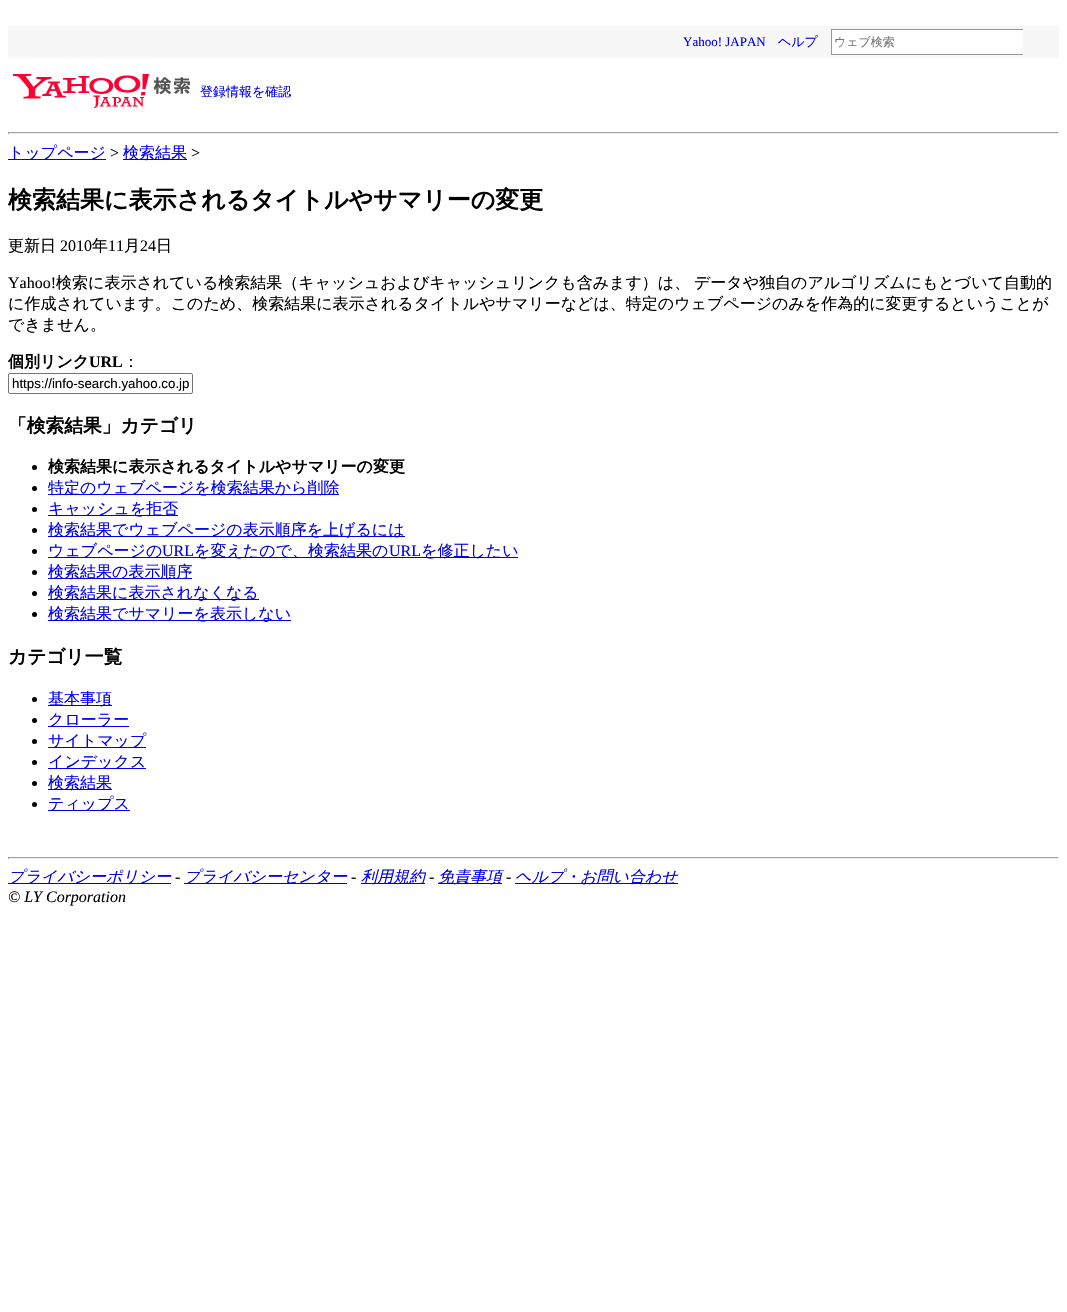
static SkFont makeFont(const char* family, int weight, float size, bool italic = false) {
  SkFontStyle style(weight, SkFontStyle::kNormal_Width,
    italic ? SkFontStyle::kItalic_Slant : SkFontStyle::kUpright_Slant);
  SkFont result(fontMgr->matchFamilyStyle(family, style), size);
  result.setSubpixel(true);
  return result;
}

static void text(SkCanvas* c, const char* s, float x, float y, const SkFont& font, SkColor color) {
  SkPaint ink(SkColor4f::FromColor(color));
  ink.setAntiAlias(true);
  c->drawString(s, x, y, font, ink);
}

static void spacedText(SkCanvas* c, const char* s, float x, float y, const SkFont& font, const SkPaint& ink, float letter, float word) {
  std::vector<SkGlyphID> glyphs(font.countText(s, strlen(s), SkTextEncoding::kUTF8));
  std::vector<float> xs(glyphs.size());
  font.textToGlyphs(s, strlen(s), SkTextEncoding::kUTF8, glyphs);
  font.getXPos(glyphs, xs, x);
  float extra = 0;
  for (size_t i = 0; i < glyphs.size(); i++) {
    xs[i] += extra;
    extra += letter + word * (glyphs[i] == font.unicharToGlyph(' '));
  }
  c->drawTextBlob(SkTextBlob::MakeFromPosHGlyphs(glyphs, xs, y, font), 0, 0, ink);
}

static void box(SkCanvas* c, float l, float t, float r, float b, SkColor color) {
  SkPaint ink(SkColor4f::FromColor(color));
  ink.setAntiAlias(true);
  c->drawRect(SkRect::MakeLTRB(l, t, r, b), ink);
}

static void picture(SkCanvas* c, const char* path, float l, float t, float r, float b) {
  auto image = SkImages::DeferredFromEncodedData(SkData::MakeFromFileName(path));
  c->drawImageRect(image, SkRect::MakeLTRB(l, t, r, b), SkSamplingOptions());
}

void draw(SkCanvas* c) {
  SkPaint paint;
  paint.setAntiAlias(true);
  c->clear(0xffffffff);
  box(c, 8, 26, 1059, 58, 0xfff7f7f8);
  SkFont face1 = makeFont("Liberation Serif", 400, 13);
  text(c, "Yahoo! JAPAN", 683, 46, face1, 0xff0000ee);
  SkFont face2 = makeFont("WenQuanYi Zen Hei", 500, 13);
  text(c, "ヘルプ", 778, 46, face2, 0xff0000ee);
  box(c, 832, 30, 1023, 54, 0xffffffff);
  box(c, 831, 29, 1023, 30, 0xff999999);
  box(c, 831, 54, 1023, 55, 0xff999999);
  box(c, 831, 29, 832, 55, 0xff999999);
  SkFont face3 = makeFont("WenQuanYi Zen Hei", 500, 12);
  text(c, "ウェブ検索", 834, 46, face3, 0xff757575);
  picture(c, "img_01.png", 13, 74, 190, 108);
  text(c, "登録情報を確認", 200, 96, face2, 0xff0000ee);
  box(c, 8, 132, 1059, 133, 0xff9f9f9f);
  box(c, 1058, 132, 1059, 134, 0xffeeeeee);
  box(c, 8, 133, 1059, 134, 0xffeeeeee);
  box(c, 8, 132, 9, 134, 0xff9f9f9f);
  box(c, 8, 159, 106, 160, 0xff0000ee);
  SkFont face4 = makeFont("WenQuanYi Zen Hei", 500, 16);
  text(c, "トップページ", 8, 158, face4, 0xff0000ee);
  SkFont face5 = makeFont("Liberation Serif", 400, 16);
  text(c, ">", 110, 158, face5, 0xff000000);
  box(c, 123, 159, 187, 160, 0xff0000ee);
  text(c, "検索結果", 123, 158, face4, 0xff0000ee);
  text(c, ">", 191, 158, face5, 0xff000000);
  SkFont face6 = makeFont("WenQuanYi Zen Hei", 700, 24);
  text(c, "検索結果に表示されるタイトルやサマリーの変更", 8, 208, face6, 0xff000000);
  text(c, "更新日", 8, 251, face4, 0xff000000);
  text(c, "2010", 60, 251, face5, 0xff000000);
  text(c, "年", 92, 251, face4, 0xff000000);
  text(c, "11", 108, 251, face5, 0xff000000);
  text(c, "月", 124, 251, face4, 0xff000000);
  text(c, "24", 140, 251, face5, 0xff000000);
  text(c, "日", 156, 251, face4, 0xff000000);
  text(c, "Yahoo!", 8, 288, face5, 0xff000000);
  paint.setColor(0xff000000);
  spacedText(c, "検索に表示されている検索結果（キャッシュおよびキャッシュリンクも含みます）は、 データや独自のアルゴリズムにもとづいて自動的", 56, 288, face4, paint, 0, -1);
  text(c, "に作成されています。このため、検索結果に表示されるタイトルやサマリーなどは、特定のウェブページのみを作為的に変更するということが", 8, 309, face4, 0xff000000);
  text(c, "できません。", 8, 330, face4, 0xff000000);
  SkFont face7 = makeFont("WenQuanYi Zen Hei", 700, 16);
  text(c, "個別リンク", 8, 367, face7, 0xff000000);
  SkFont face8 = makeFont("Liberation Serif", 700, 16);
  text(c, "URL", 89, 367, face8, 0xff000000);
  text(c, "：", 123, 367, face4, 0xff000000);
  paint.setStyle(SkPaint::kStroke_Style);
  paint.setStrokeWidth(1);
  paint.setColor(0xff767676);
  c->drawRoundRect(SkRect::MakeLTRB(8.5f, 373.5f, 192.5f, 393.5f), 1.5f, 1.5f, paint);
  c->save();
  c->clipRect(SkRect::MakeLTRB(12, 376, 189, 391));
  SkFont face9 = makeFont("Liberation Sans", 400, 13.3f);
  text(c, "https://info-search.yahoo.co.jp", 12, 388, face9, 0xff000000);
  c->restore();
  SkFont face10 = makeFont("WenQuanYi Zen Hei", 700, 18.75f);
  text(c, "「検索結果」カテゴリ", 8, 432, face10, 0xff000000);
  paint.setStyle(SkPaint::kFill_Style);
  paint.setColor(0xff000000);
  c->drawCircle(34.5f, 467.5f, 2.5f, paint);
  text(c, "検索結果に表示されるタイトルやサマリーの変更", 48, 472, face7, 0xff000000);
  c->drawCircle(34.5f, 488.5f, 2.5f, paint);
  box(c, 48, 494, 339, 495, 0xff0000ee);
  text(c, "特定のウェブページを検索結果から削除", 48, 493, face4, 0xff0000ee);
  c->drawCircle(34.5f, 509.5f, 2.5f, paint);
  box(c, 48, 515, 178, 516, 0xff0000ee);
  text(c, "キャッシュを拒否", 48, 514, face4, 0xff0000ee);
  c->drawCircle(34.5f, 530.5f, 2.5f, paint);
  box(c, 48, 536, 405, 537, 0xff0000ee);
  text(c, "検索結果でウェブページの表示順序を上げるには", 48, 535, face4, 0xff0000ee);
  c->drawCircle(34.5f, 551.5f, 2.5f, paint);
  box(c, 48, 557, 518, 558, 0xff0000ee);
  text(c, "ウェブページの", 48, 556, face4, 0xff0000ee);
  text(c, "URL", 162, 556, face5, 0xff0000ee);
  text(c, "を変えたので、検索結果の", 194, 556, face4, 0xff0000ee);
  text(c, "URL", 389, 556, face5, 0xff0000ee);
  text(c, "を修正したい", 421, 556, face4, 0xff0000ee);
  c->drawCircle(34.5f, 572.5f, 2.5f, paint);
  box(c, 48, 578, 192, 579, 0xff0000ee);
  text(c, "検索結果の表示順序", 48, 577, face4, 0xff0000ee);
  c->drawCircle(34.5f, 593.5f, 2.5f, paint);
  box(c, 48, 599, 259, 600, 0xff0000ee);
  text(c, "検索結果に表示されなくなる", 48, 598, face4, 0xff0000ee);
  c->drawCircle(34.5f, 614.5f, 2.5f, paint);
  box(c, 48, 620, 291, 621, 0xff0000ee);
  text(c, "検索結果でサマリーを表示しない", 48, 619, face4, 0xff0000ee);
  text(c, "カテゴリ一覧", 8, 663, face10, 0xff000000);
  c->drawCircle(34.5f, 699.5f, 2.5f, paint);
  box(c, 48, 705, 112, 706, 0xff0000ee);
  text(c, "基本事項", 48, 704, face4, 0xff0000ee);
  c->drawCircle(34.5f, 720.5f, 2.5f, paint);
  box(c, 48, 726, 129, 727, 0xff0000ee);
  text(c, "クローラー", 48, 725, face4, 0xff0000ee);
  c->drawCircle(34.5f, 741.5f, 2.5f, paint);
  box(c, 48, 747, 146, 748, 0xff0000ee);
  text(c, "サイトマップ", 48, 746, face4, 0xff0000ee);
  c->drawCircle(34.5f, 762.5f, 2.5f, paint);
  box(c, 48, 768, 146, 769, 0xff0000ee);
  text(c, "インデックス", 48, 767, face4, 0xff0000ee);
  c->drawCircle(34.5f, 783.5f, 2.5f, paint);
  box(c, 48, 789, 112, 790, 0xff0000ee);
  text(c, "検索結果", 48, 788, face4, 0xff0000ee);
  c->drawCircle(34.5f, 804.5f, 2.5f, paint);
  box(c, 48, 810, 130, 811, 0xff0000ee);
  text(c, "ティップス", 48, 809, face4, 0xff0000ee);
  box(c, 8, 857, 1059, 858, 0xff9f9f9f);
  box(c, 1058, 857, 1059, 859, 0xffeeeeee);
  box(c, 8, 858, 1059, 859, 0xffeeeeee);
  box(c, 8, 857, 9, 859, 0xff9f9f9f);
  box(c, 8, 883, 171, 884, 0xff0000ee);
  SkFont face11 = makeFont("WenQuanYi Zen Hei", 500, 16, true);
  text(c, "プライバシーポリシー", 8, 882, face11, 0xff0000ee);
  SkFont face12 = makeFont("Liberation Serif", 400, 16, true);
  text(c, "-", 175, 882, face12, 0xff000000);
  box(c, 184, 883, 347, 884, 0xff0000ee);
  text(c, "プライバシーセンター", 184, 882, face11, 0xff0000ee);
  text(c, "-", 351, 882, face12, 0xff000000);
  box(c, 361, 883, 425, 884, 0xff0000ee);
  text(c, "利用規約", 361, 882, face11, 0xff0000ee);
  text(c, "-", 429, 882, face12, 0xff000000);
  box(c, 438, 883, 502, 884, 0xff0000ee);
  text(c, "免責事項", 438, 882, face11, 0xff0000ee);
  text(c, "-", 506, 882, face12, 0xff000000);
  box(c, 515, 883, 678, 884, 0xff0000ee);
  text(c, "ヘルプ・お問い合わせ", 515, 882, face11, 0xff0000ee);
  text(c, "© LY Corporation", 8, 902, face12, 0xff000000);
}
